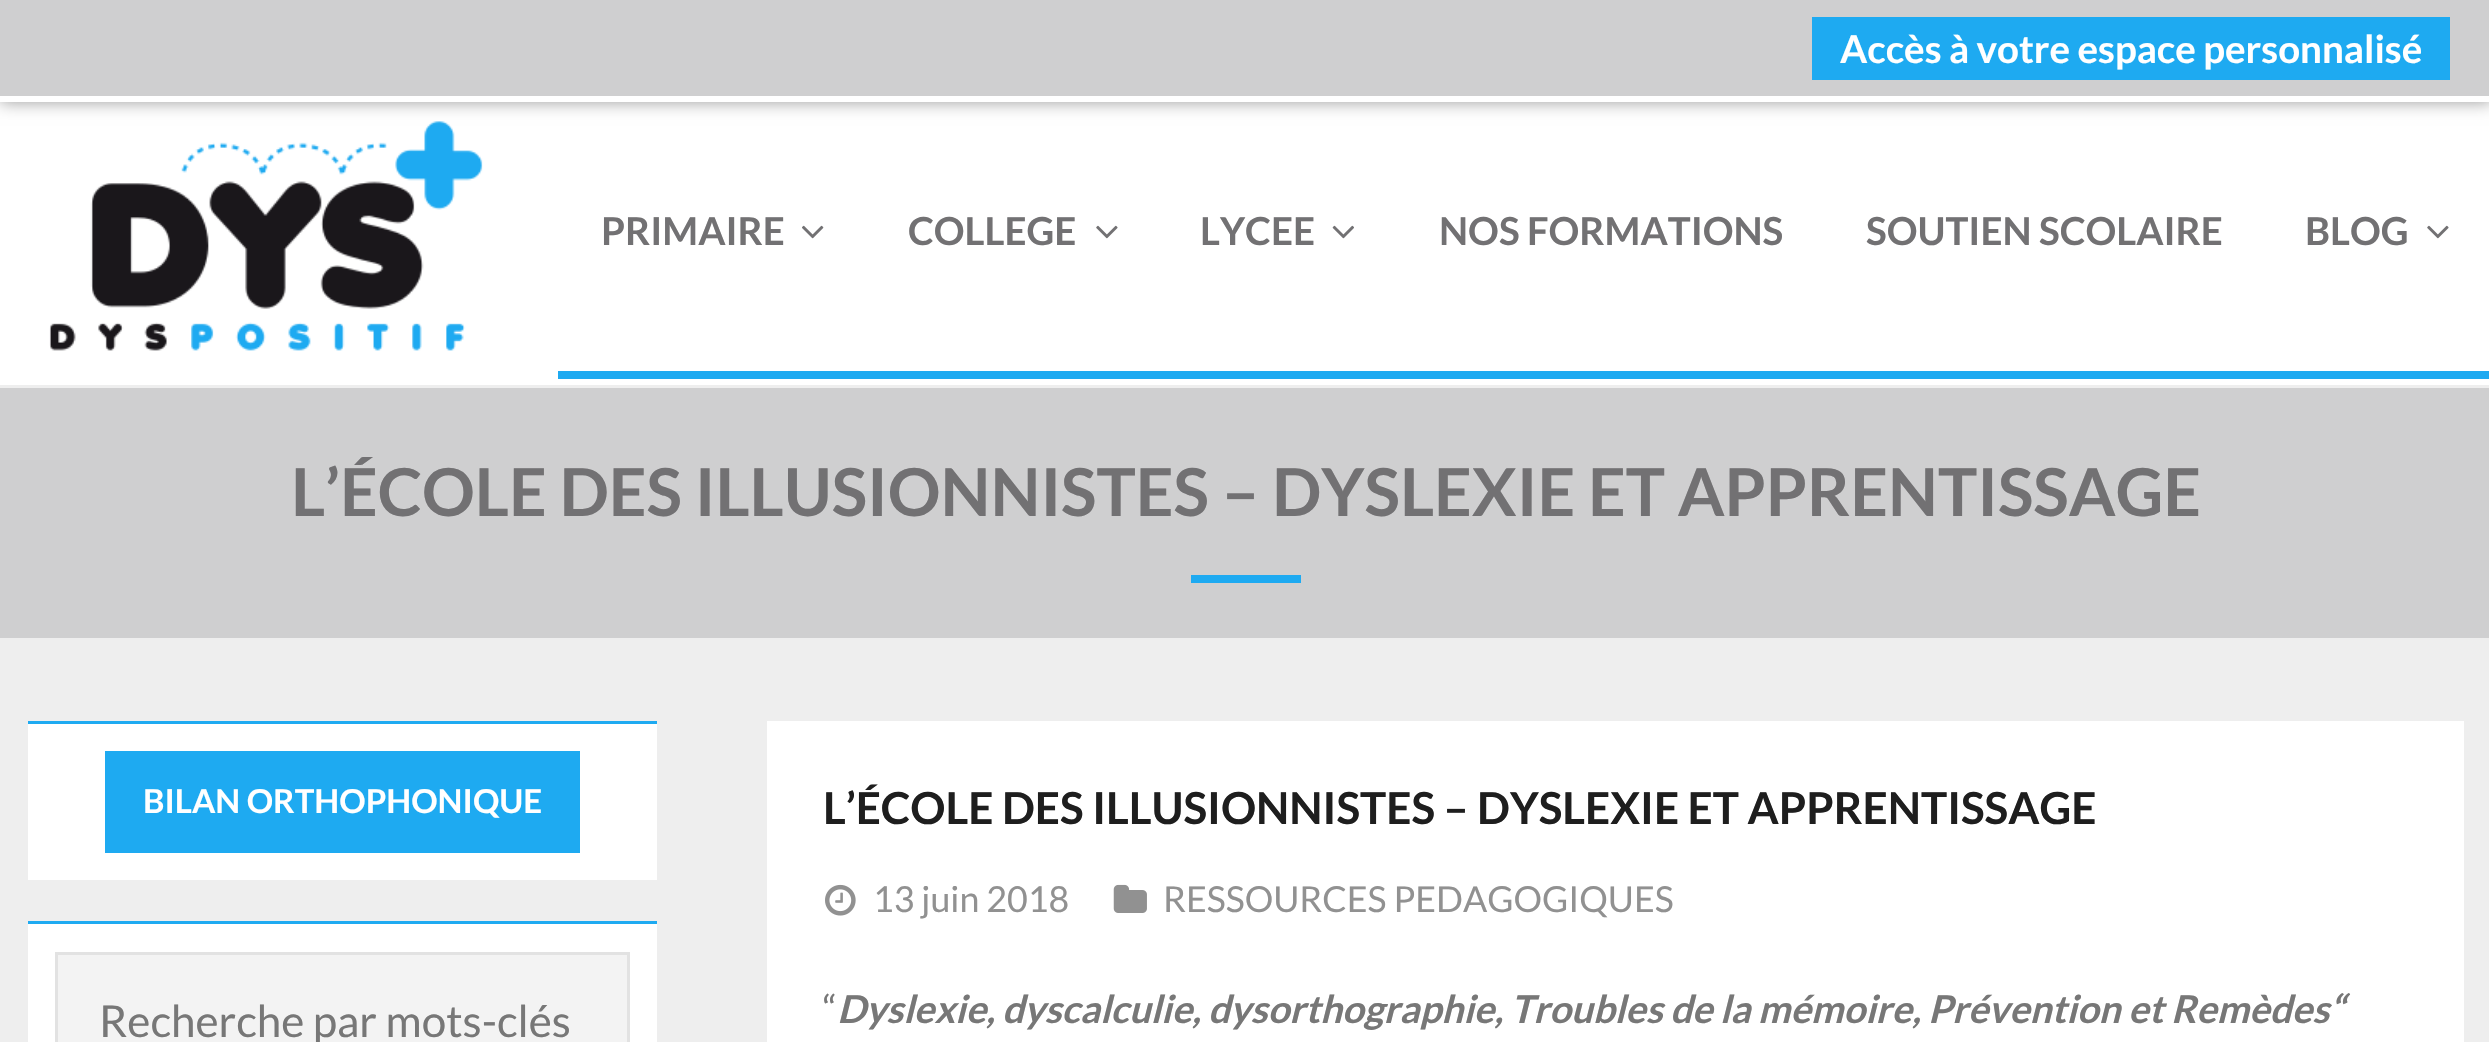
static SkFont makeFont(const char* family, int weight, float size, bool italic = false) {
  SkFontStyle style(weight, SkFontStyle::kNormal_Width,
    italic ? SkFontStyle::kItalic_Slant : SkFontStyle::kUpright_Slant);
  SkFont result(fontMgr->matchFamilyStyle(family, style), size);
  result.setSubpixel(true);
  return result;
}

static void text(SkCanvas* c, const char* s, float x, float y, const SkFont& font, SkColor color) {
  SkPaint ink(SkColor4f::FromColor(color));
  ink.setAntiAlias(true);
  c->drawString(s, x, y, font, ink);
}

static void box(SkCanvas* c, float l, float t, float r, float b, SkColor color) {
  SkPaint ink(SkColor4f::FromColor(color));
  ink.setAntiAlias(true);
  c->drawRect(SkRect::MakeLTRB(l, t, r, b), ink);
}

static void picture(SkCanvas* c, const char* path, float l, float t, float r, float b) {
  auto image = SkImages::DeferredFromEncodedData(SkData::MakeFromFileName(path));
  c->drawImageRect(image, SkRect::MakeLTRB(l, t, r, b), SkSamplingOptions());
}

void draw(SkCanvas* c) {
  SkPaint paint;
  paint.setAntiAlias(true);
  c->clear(0xffeeeeee);
  box(c, 0, 102, 2489, 385, 0xffffffff);
  picture(c, "img_01.png", 49, 121, 483, 351);
  paint.setColor(0xff999999);
  paint.setMaskFilter(SkMaskFilter::MakeBlur(kNormal_SkBlurStyle, 8));
  c->drawRect(SkRect::MakeLTRB(0, 0, 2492, 102), paint);
  paint.setMaskFilter(nullptr);
  box(c, 0, 0, 2489, 96, 0xffcfcfd0);
  box(c, 0, 96, 2489, 102, 0xffffffff);
  box(c, 1812, 17, 2450, 80, 0xff1eaaf1);
  SkFont face1 = makeFont("Lato", 700, 38.5f);
  text(c, "Accès à votre espace personnalisé", 1840, 63, face1, 0xffffffff);
  box(c, 558, 371, 2489, 379, 0xff1eaaf1);
  text(c, "PRIMAIRE", 601, 245, face1, 0xff727173);
  picture(c, "img_02.png", 802, 225, 824, 239);
  text(c, "COLLEGE", 908, 245, face1, 0xff727173);
  picture(c, "img_03.png", 1096, 225, 1118, 239);
  text(c, "LYCEE", 1200, 245, face1, 0xff727173);
  picture(c, "img_04.png", 1332, 225, 1354, 239);
  text(c, "NOS FORMATIONS", 1439, 245, face1, 0xff727173);
  text(c, "SOUTIEN SCOLAIRE", 1866, 245, face1, 0xff727173);
  text(c, "BLOG", 2305, 245, face1, 0xff727173);
  picture(c, "img_03.png", 2427, 225, 2449, 239);
  box(c, 0, 388, 2489, 638, 0xffcfcfd0);
  SkFont face2 = makeFont("Lato", 700, 66);
  text(c, "L’ÉCOLE DES ILLUSIONNISTES – DYSLEXIE ET APPRENTISSAGE", 291, 516, face2, 0xff727173);
  box(c, 1191, 575, 1301, 583, 0xff1eaaf1);
  box(c, 28, 724, 657, 880, 0xffffffff);
  box(c, 28, 721, 657, 724, 0xff1eaaf1);
  box(c, 105, 751, 580, 853, 0xff1eaaf1);
  SkFont face3 = makeFont("Lato", 700, 33);
  text(c, "BILAN ORTHOPHONIQUE", 143, 813, face3, 0xffffffff);
  box(c, 28, 924, 657, 1042, 0xffffffff);
  box(c, 28, 921, 657, 924, 0xff1eaaf1);
  paint.setColor(0xfff3f3f3);
  c->drawRect(SkRect::MakeLTRB(56.5f, 953.5f, 628.5f, 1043.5f), paint);
  paint.setStyle(SkPaint::kStroke_Style);
  paint.setStrokeWidth(3);
  paint.setColor(0xffe2e2e2);
  c->drawRect(SkRect::MakeLTRB(56.5f, 953.5f, 628.5f, 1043.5f), paint);
  SkFont face4 = makeFont("Lato", 400, 44);
  text(c, "Recherche par mots-clés", 99, 1037, face4, 0xff777777);
  box(c, 767, 721, 2464, 1042, 0xffffffff);
  SkFont face5 = makeFont("Lato", 700, 44);
  text(c, "L’ÉCOLE DES ILLUSIONNISTES – DYSLEXIE ET APPRENTISSAGE", 823, 824, face5, 0xff1e1e1e);
  picture(c, "img_05.png", 825, 884, 856, 916);
  SkFont face6 = makeFont("Lato", 400, 35.75f);
  text(c, "13 juin 2018", 873, 912, face6, 0xff919191);
  picture(c, "img_06.png", 1113, 884, 1147, 913);
  text(c, "RESSOURCES PEDAGOGIQUES", 1163, 912, face6, 0xff919191);
  SkFont face7 = makeFont("Lato", 400, 38.5f);
  text(c, "“", 823, 1023, face7, 0xff777777);
  SkFont face8 = makeFont("Lato", 700, 38.5f, true);
  text(c, "Dyslexie, dyscalculie, dysorthographie, Troubles de la mémoire, Prévention et Remèdes“", 837, 1023, face8, 0xff777777);
}
